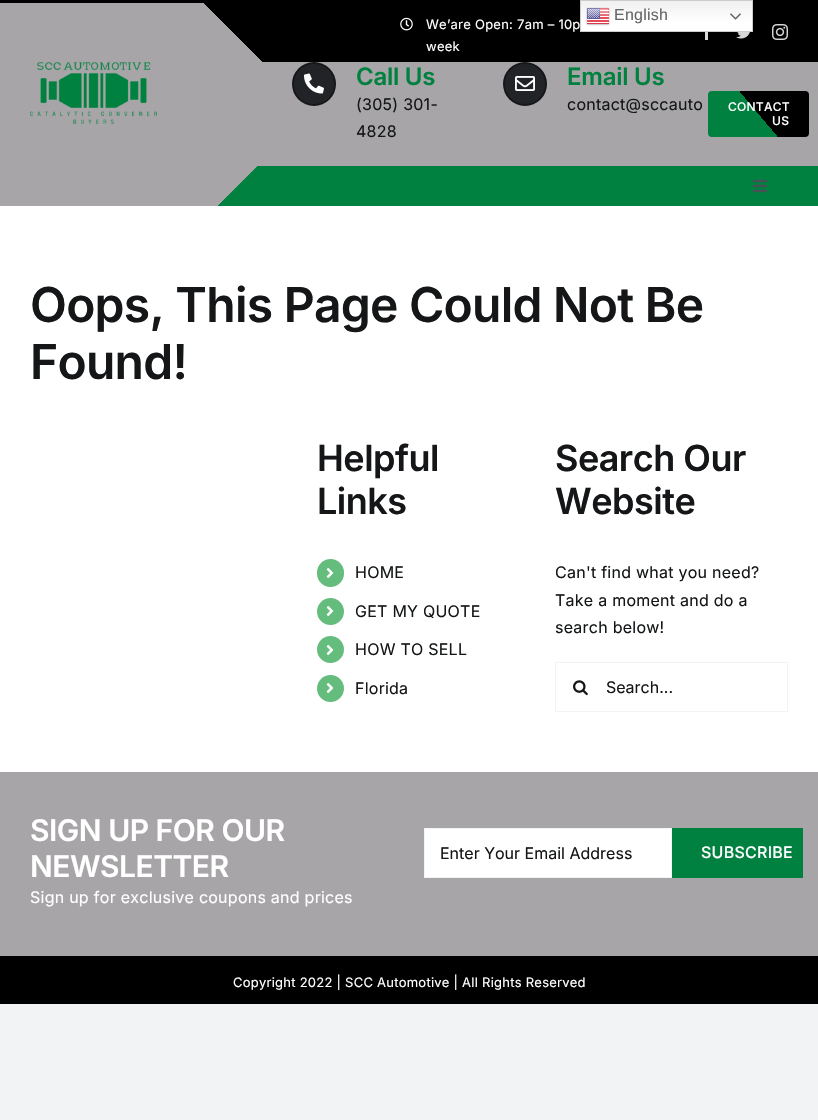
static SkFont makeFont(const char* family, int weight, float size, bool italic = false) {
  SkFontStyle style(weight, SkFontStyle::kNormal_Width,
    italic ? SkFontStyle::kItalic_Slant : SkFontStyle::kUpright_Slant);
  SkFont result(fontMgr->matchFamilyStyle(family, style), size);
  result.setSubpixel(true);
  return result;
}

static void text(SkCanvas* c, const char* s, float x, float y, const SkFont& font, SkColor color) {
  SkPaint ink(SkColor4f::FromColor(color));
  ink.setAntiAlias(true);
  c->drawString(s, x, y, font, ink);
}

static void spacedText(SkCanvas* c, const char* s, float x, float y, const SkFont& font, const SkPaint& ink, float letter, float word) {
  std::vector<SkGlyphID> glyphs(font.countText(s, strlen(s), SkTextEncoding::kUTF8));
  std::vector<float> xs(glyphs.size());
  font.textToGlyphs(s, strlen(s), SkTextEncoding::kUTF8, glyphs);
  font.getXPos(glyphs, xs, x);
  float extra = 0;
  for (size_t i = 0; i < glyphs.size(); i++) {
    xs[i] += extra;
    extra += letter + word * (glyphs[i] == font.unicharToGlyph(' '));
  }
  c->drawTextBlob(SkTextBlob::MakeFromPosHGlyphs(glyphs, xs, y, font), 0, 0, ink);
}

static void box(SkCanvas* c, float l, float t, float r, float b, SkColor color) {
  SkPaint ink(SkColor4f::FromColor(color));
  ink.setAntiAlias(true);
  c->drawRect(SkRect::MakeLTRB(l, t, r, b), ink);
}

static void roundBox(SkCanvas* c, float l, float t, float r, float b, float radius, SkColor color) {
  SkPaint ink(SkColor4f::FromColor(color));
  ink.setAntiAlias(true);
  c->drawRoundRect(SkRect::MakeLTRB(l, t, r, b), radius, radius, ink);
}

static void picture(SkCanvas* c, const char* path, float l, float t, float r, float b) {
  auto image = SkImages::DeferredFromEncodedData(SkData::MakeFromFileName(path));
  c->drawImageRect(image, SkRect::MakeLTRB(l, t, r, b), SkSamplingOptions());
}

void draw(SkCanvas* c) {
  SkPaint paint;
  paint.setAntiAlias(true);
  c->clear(0xfff2f3f5);
  {
    const SkColor colors[] = {0xffa7a5a7, 0xff000000};
    const float stops[] = {0.3f, 0.3f};
    const SkPoint ends[] = {{190, 252}, {628, -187}};
    paint.setShader(SkGradientShader::MakeLinear(ends, colors, stops, 2, SkTileMode::kClamp));
    paint.setAlpha(255);
  }
  c->drawRect(SkRect::MakeLTRB(0, 3, 818, 62), paint);
  box(c, 0, 0, 818, 3, 0xff000000);
  {
    const SkColor colors[] = {0xffefefef, 0xffffffff};
    const float stops[] = {0, 0.7f};
    const SkPoint ends[] = {{667, 0}, {667, 32}};
    paint.setShader(SkGradientShader::MakeLinear(ends, colors, stops, 2, SkTileMode::kClamp));
    paint.setAlpha(255);
  }
  c->drawRect(SkRect::MakeLTRB(581, 1, 752, 31), paint);
  paint.setStyle(SkPaint::kStroke_Style);
  paint.setStrokeWidth(1);
  paint.setShader(nullptr);
  paint.setColor(0xffcccccc);
  c->drawRect(SkRect::MakeLTRB(580.5f, 0.5f, 752.5f, 31.5f), paint);
  picture(c, "img_01.png", 586, 7, 610, 26);
  SkFont face1 = makeFont("Liberation Sans", 400, 16);
  paint.setStyle(SkPaint::kFill_Style);
  paint.setColor(0xff666666);
  spacedText(c, "English", 614, 20, face1, paint, 0.25f, 0);
  picture(c, "img_02.png", 730, 13, 741, 20);
  box(c, 0, 206, 818, 772, 0xffffffff);
  box(c, 0, 62, 818, 166, 0xffa7a5a7);
  picture(c, "img_03.png", 400, 17, 413, 31);
  SkFont face2 = makeFont("Inter", 400, 13);
  paint.setColor(0xffffffff);
  spacedText(c, "We’are Open: 7am – 10p", 426, 29, face2, paint, 0.25f, 0);
  spacedText(c, "week", 426, 51, face2, paint, 0.25f, 0);
  picture(c, "img_04.png", 705, 32, 708, 40);
  picture(c, "img_05.png", 736, 32, 750, 39);
  picture(c, "img_06.png", 772, 24, 788, 40);
  picture(c, "img_07.png", 30, 62, 157, 124);
  paint.setColor(0xff141617);
  c->drawCircle(314, 84, 22, paint);
  paint.setColor(0xff212326);
  c->drawCircle(314, 84, 20.5f, paint);
  paint.setStyle(SkPaint::kStroke_Style);
  paint.setColor(0xff141617);
  c->drawCircle(314, 84, 20.5f, paint);
  picture(c, "img_08.png", 304, 73, 324, 94);
  SkFont face3 = makeFont("Inter", 600, 24);
  paint.setStyle(SkPaint::kFill_Style);
  paint.setColor(0xff008140);
  spacedText(c, "Call Us", 356, 85, face3, paint, -0.25f, 0);
  SkFont face4 = makeFont("Inter", 400, 16);
  paint.setColor(0xff141617);
  spacedText(c, "(305) 301-", 356, 110, face4, paint, 0.25f, 0);
  spacedText(c, "4828", 356, 137, face4, paint, 0.25f, 0);
  c->drawCircle(525, 84, 22, paint);
  paint.setColor(0xff212326);
  c->drawCircle(525, 84, 20.5f, paint);
  paint.setStyle(SkPaint::kStroke_Style);
  paint.setColor(0xff141617);
  c->drawCircle(525, 84, 20.5f, paint);
  picture(c, "img_09.png", 515, 76, 535, 91);
  paint.setStyle(SkPaint::kFill_Style);
  paint.setColor(0xff008140);
  spacedText(c, "Email Us", 567, 85, face3, paint, -0.25f, 0);
  paint.setColor(0xff141617);
  spacedText(c, "contact@sccauto", 567, 110, face4, paint, 0.25f, 0);
  {
    const SkColor colors[] = {0xff008140, 0xff000000};
    const float stops[] = {0.5f, 0.5f};
    const SkPoint ends[] = {{718, 148}, {799, 80}};
    paint.setShader(SkGradientShader::MakeLinear(ends, colors, stops, 2, SkTileMode::kClamp));
    paint.setAlpha(255);
  }
  c->drawRoundRect(SkRect::MakeLTRB(708, 91, 809, 137), 4, 4, paint);
  SkFont face5 = makeFont("Inter", 500, 12);
  paint.setShader(nullptr);
  paint.setColor(0xffffffff);
  spacedText(c, "CONTACT", 728, 111, face5, paint, 0.25f, 0);
  spacedText(c, "US", 772, 125, face5, paint, 0.25f, 0);
  {
    const SkColor colors[] = {0xffa7a5a7, 0xff008140};
    const float stops[] = {0.3f, 0.3f};
    const SkPoint ends[] = {{194, -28}, {624, 401}};
    paint.setShader(SkGradientShader::MakeLinear(ends, colors, stops, 2, SkTileMode::kClamp));
    paint.setAlpha(255);
  }
  c->drawRect(SkRect::MakeLTRB(0, 166, 818, 206), paint);
  picture(c, "img_10.png", 753, 179, 767, 193);
  SkFont face6 = makeFont("Inter", 600, 48);
  paint.setShader(nullptr);
  paint.setColor(0xff141617);
  spacedText(c, "Oops, This Page Could Not Be", 30, 322, face6, paint, -0.75f, 0);
  spacedText(c, "Found!", 30, 379, face6, paint, -0.75f, 0);
  SkFont face7 = makeFont("Inter", 600, 36);
  spacedText(c, "Helpful", 317, 471, face7, paint, -0.5f, 0);
  spacedText(c, "Links", 317, 514, face7, paint, -0.5f, 0);
  roundBox(c, 317, 559, 344, 587, 13.5f, 0xff65bd7d);
  picture(c, "img_11.png", 326, 568, 334, 578);
  spacedText(c, "HOME", 355, 578, face4, paint, 0.25f, 0);
  paint.setColor(0xff65bd7d);
  c->drawCircle(330.5f, 611.5f, 13.5f, paint);
  picture(c, "img_11.png", 326, 606, 334, 616);
  paint.setColor(0xff141617);
  spacedText(c, "GET MY QUOTE", 355, 617, face4, paint, 0.25f, 0);
  paint.setColor(0xff65bd7d);
  c->drawCircle(330.5f, 649.5f, 13.5f, paint);
  picture(c, "img_11.png", 326, 645, 334, 655);
  paint.setColor(0xff141617);
  spacedText(c, "HOW TO SELL", 355, 655, face4, paint, 0.25f, 0);
  paint.setColor(0xff65bd7d);
  c->drawCircle(330.5f, 688.5f, 13.5f, paint);
  picture(c, "img_11.png", 326, 683, 334, 693);
  paint.setColor(0xff141617);
  spacedText(c, "Florida", 355, 694, face4, paint, 0.25f, 0);
  spacedText(c, "Search Our", 555, 471, face7, paint, -0.5f, 0);
  spacedText(c, "Website", 555, 514, face7, paint, -0.5f, 0);
  spacedText(c, "Can't find what you need?", 555, 578, face4, paint, 0.25f, 0);
  spacedText(c, "Take a moment and do a", 555, 606, face4, paint, 0.25f, 0);
  spacedText(c, "search below!", 555, 633, face4, paint, 0.25f, 0);
  paint.setStyle(SkPaint::kStroke_Style);
  paint.setColor(0xfff2f3f5);
  c->drawRect(SkRect::MakeLTRB(555.5f, 662.5f, 787.5f, 711.5f), paint);
  picture(c, "img_12.png", 573, 680, 588, 696);
  text(c, "Search...", 606, 693, face4, 0xff141617);
  box(c, 0, 772, 818, 956, 0xffa7a5a7);
  SkFont face8 = makeFont("Inter", 600, 30);
  paint.setStyle(SkPaint::kFill_Style);
  paint.setColor(0xffffffff);
  spacedText(c, "SIGN UP FOR OUR", 30, 841, face8, paint, -0.5f, 0);
  spacedText(c, "NEWSLETTER", 30, 877, face8, paint, -0.5f, 0);
  spacedText(c, "Sign up for exclusive coupons and prices", 30, 903, face4, paint, 0.25f, 0);
  c->drawRect(SkRect::MakeLTRB(424.5f, 828.5f, 671.5f, 877.5f), paint);
  paint.setStyle(SkPaint::kStroke_Style);
  paint.setColor(0xfff2f3f5);
  c->drawRect(SkRect::MakeLTRB(424.5f, 828.5f, 671.5f, 877.5f), paint);
  text(c, "Enter Your Email Address", 440, 859, face4, 0xff141617);
  box(c, 672, 828, 803, 878, 0xff008140);
  SkFont face9 = makeFont("Inter", 500, 16);
  paint.setStyle(SkPaint::kFill_Style);
  paint.setColor(0xffffffff);
  spacedText(c, "SUBSCRIBE", 701, 858, face9, paint, 0.25f, 0);
  box(c, 0, 956, 818, 1004, 0xff000000);
  spacedText(c, "Copyright 2022 | SCC Automotive | All Rights Reserved", 233, 987, face2, paint, 0.25f, 0);
}
